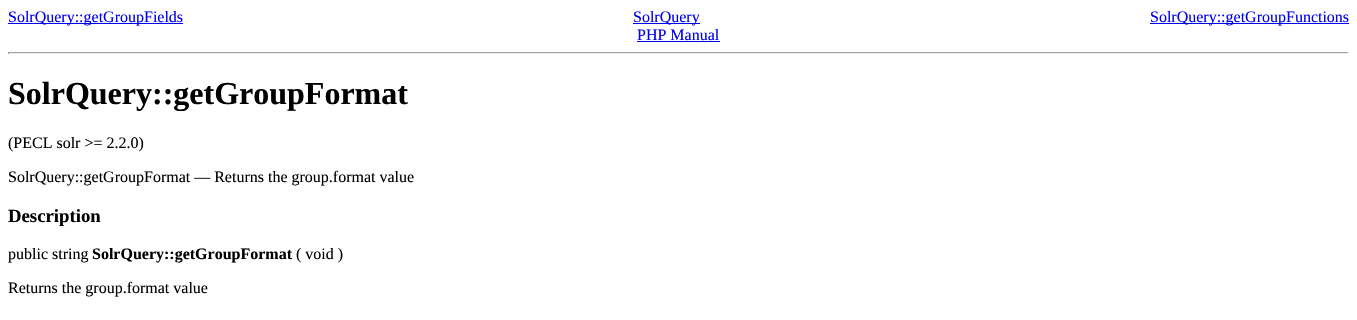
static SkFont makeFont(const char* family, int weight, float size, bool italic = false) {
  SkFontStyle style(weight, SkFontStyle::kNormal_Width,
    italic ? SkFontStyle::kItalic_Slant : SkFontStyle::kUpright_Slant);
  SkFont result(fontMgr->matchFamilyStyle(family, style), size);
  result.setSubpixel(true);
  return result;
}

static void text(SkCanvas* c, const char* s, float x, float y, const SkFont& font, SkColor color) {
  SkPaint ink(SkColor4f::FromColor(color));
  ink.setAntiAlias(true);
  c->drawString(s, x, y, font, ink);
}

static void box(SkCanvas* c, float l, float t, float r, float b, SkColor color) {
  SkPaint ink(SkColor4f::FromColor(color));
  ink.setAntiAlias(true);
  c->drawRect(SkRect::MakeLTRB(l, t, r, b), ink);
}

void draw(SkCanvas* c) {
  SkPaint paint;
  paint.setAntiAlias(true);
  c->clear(0xffffffff);
  box(c, 8, 23, 183, 24, 0xff0000ee);
  SkFont face1 = makeFont("Liberation Serif", 400, 16);
  text(c, "SolrQuery::getGroupFields", 8, 22, face1, 0xff0000ee);
  box(c, 633, 23, 700, 24, 0xff0000ee);
  text(c, "SolrQuery", 633, 22, face1, 0xff0000ee);
  box(c, 1150, 23, 1349, 24, 0xff0000ee);
  text(c, "SolrQuery::getGroupFunctions", 1150, 22, face1, 0xff0000ee);
  text(c, "PHP Manual", 637, 40, face1, 0xff0000ee);
  box(c, 637, 41, 720, 42, 0xff0000ee);
  box(c, 8, 52, 1349, 53, 0xff9f9f9f);
  box(c, 1348, 52, 1349, 54, 0xffeeeeee);
  box(c, 8, 53, 1349, 54, 0xffeeeeee);
  box(c, 8, 52, 9, 54, 0xff9f9f9f);
  SkFont face2 = makeFont("Liberation Serif", 700, 32);
  text(c, "SolrQuery::getGroupFormat", 8, 104, face2, 0xff000000);
  text(c, "(PECL solr >= 2.2.0)", 8, 148, face1, 0xff000000);
  text(c, "SolrQuery::getGroupFormat — Returns the group.format value", 8, 182, face1, 0xff000000);
  SkFont face3 = makeFont("Liberation Serif", 700, 18.75f);
  text(c, "Description", 8, 222, face3, 0xff000000);
  text(c, "public string", 8, 259, face1, 0xff000000);
  SkFont face4 = makeFont("Liberation Serif", 700, 16);
  text(c, "SolrQuery::getGroupFormat", 92, 259, face4, 0xff000000);
  text(c, "( void )", 296, 259, face1, 0xff000000);
  text(c, "Returns the group.format value", 8, 293, face1, 0xff000000);
}
